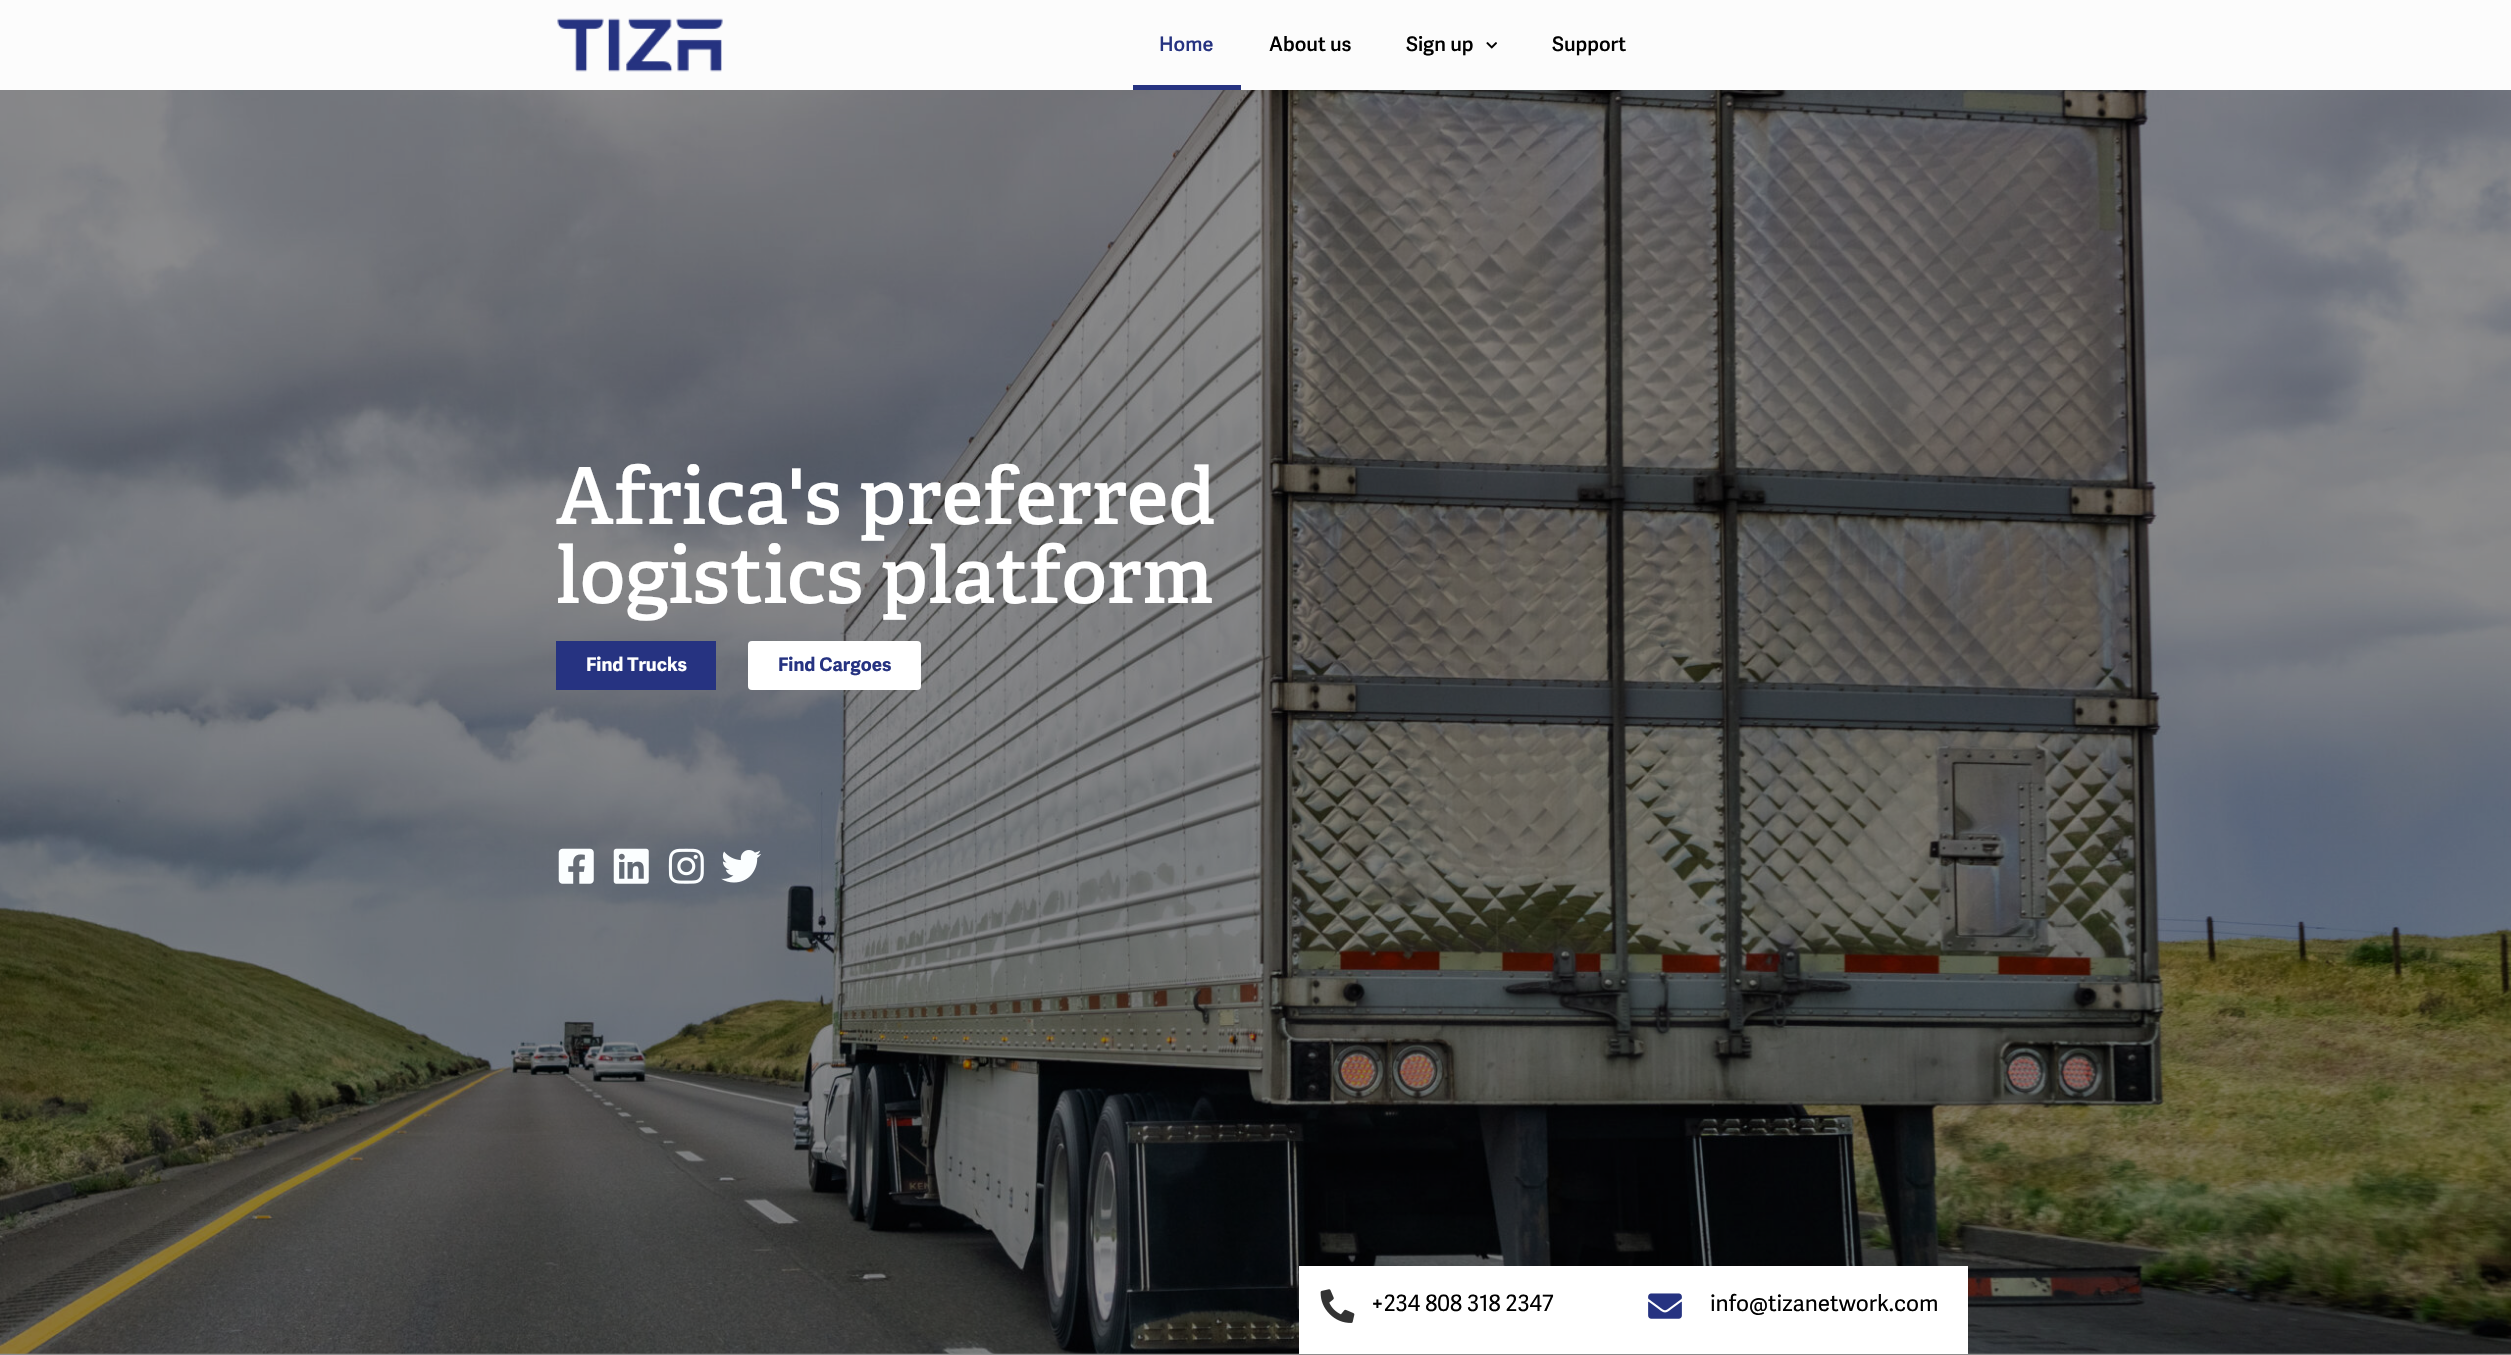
static SkFont makeFont(const char* family, int weight, float size, bool italic = false) {
  SkFontStyle style(weight, SkFontStyle::kNormal_Width,
    italic ? SkFontStyle::kItalic_Slant : SkFontStyle::kUpright_Slant);
  SkFont result(fontMgr->matchFamilyStyle(family, style), size);
  result.setSubpixel(true);
  return result;
}

static void text(SkCanvas* c, const char* s, float x, float y, const SkFont& font, SkColor color) {
  SkPaint ink(SkColor4f::FromColor(color));
  ink.setAntiAlias(true);
  c->drawString(s, x, y, font, ink);
}

static void box(SkCanvas* c, float l, float t, float r, float b, SkColor color) {
  SkPaint ink(SkColor4f::FromColor(color));
  ink.setAntiAlias(true);
  c->drawRect(SkRect::MakeLTRB(l, t, r, b), ink);
}

static void roundBox(SkCanvas* c, float l, float t, float r, float b, float radius, SkColor color) {
  SkPaint ink(SkColor4f::FromColor(color));
  ink.setAntiAlias(true);
  c->drawRoundRect(SkRect::MakeLTRB(l, t, r, b), radius, radius, ink);
}

static void picture(SkCanvas* c, const char* path, float l, float t, float r, float b) {
  auto image = SkImages::DeferredFromEncodedData(SkData::MakeFromFileName(path));
  c->drawImageRect(image, SkRect::MakeLTRB(l, t, r, b), SkSamplingOptions());
}

void draw(SkCanvas* c) {
  SkPaint paint;
  paint.setAntiAlias(true);
  c->clear(0xff8c8c8c);
  box(c, 0, 0, 2511, 90, 0xfffcfcfc);
  picture(c, "img_01.png", 557, 18, 723, 72);
  SkFont face1 = makeFont("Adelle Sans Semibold", 600, 20);
  text(c, "Home", 1159, 51, face1, 0xff263381);
  box(c, 1133, 85, 1241, 90, 0xff263381);
  text(c, "About us", 1269, 51, face1, 0xff000000);
  text(c, "Sign up", 1406, 51, face1, 0xff000000);
  picture(c, "img_02.png", 1486, 42, 1497, 49);
  text(c, "Support", 1552, 51, face1, 0xff000000);
  picture(c, "img_03.png", 0, 90, 2511, 1354);
  SkFont face2 = makeFont("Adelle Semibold", 600, 78.75f);
  text(c, "Africa's preferred", 556, 524, face2, 0xffffffff);
  text(c, "logistics platform", 556, 603, face2, 0xffffffff);
  box(c, 556, 641, 716, 690, 0xff263381);
  SkFont face3 = makeFont("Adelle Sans", 700, 18.75f);
  text(c, "Find Trucks", 586, 671, face3, 0xffffffff);
  roundBox(c, 748, 641, 921, 690, 4, 0xffffffff);
  text(c, "Find Cargoes", 778, 671, face3, 0xff263381);
  picture(c, "img_04.png", 558, 848, 594, 884);
  picture(c, "img_05.png", 613, 848, 649, 884);
  picture(c, "img_06.png", 668, 848, 704, 884);
  picture(c, "img_07.png", 721, 850, 761, 883);
  box(c, 1299, 1266, 1968, 1354, 0xffffffff);
  picture(c, "img_08.png", 1320, 1289, 1355, 1323);
  SkFont face4 = makeFont("Adelle Sans", 400, 22.5f);
  text(c, "+234 808 318 2347", 1371, 1311, face4, 0xff000000);
  picture(c, "img_09.png", 1648, 1293, 1682, 1319);
  text(c, "info@tizanetwork.com", 1710, 1311, face4, 0xff000000);
}
